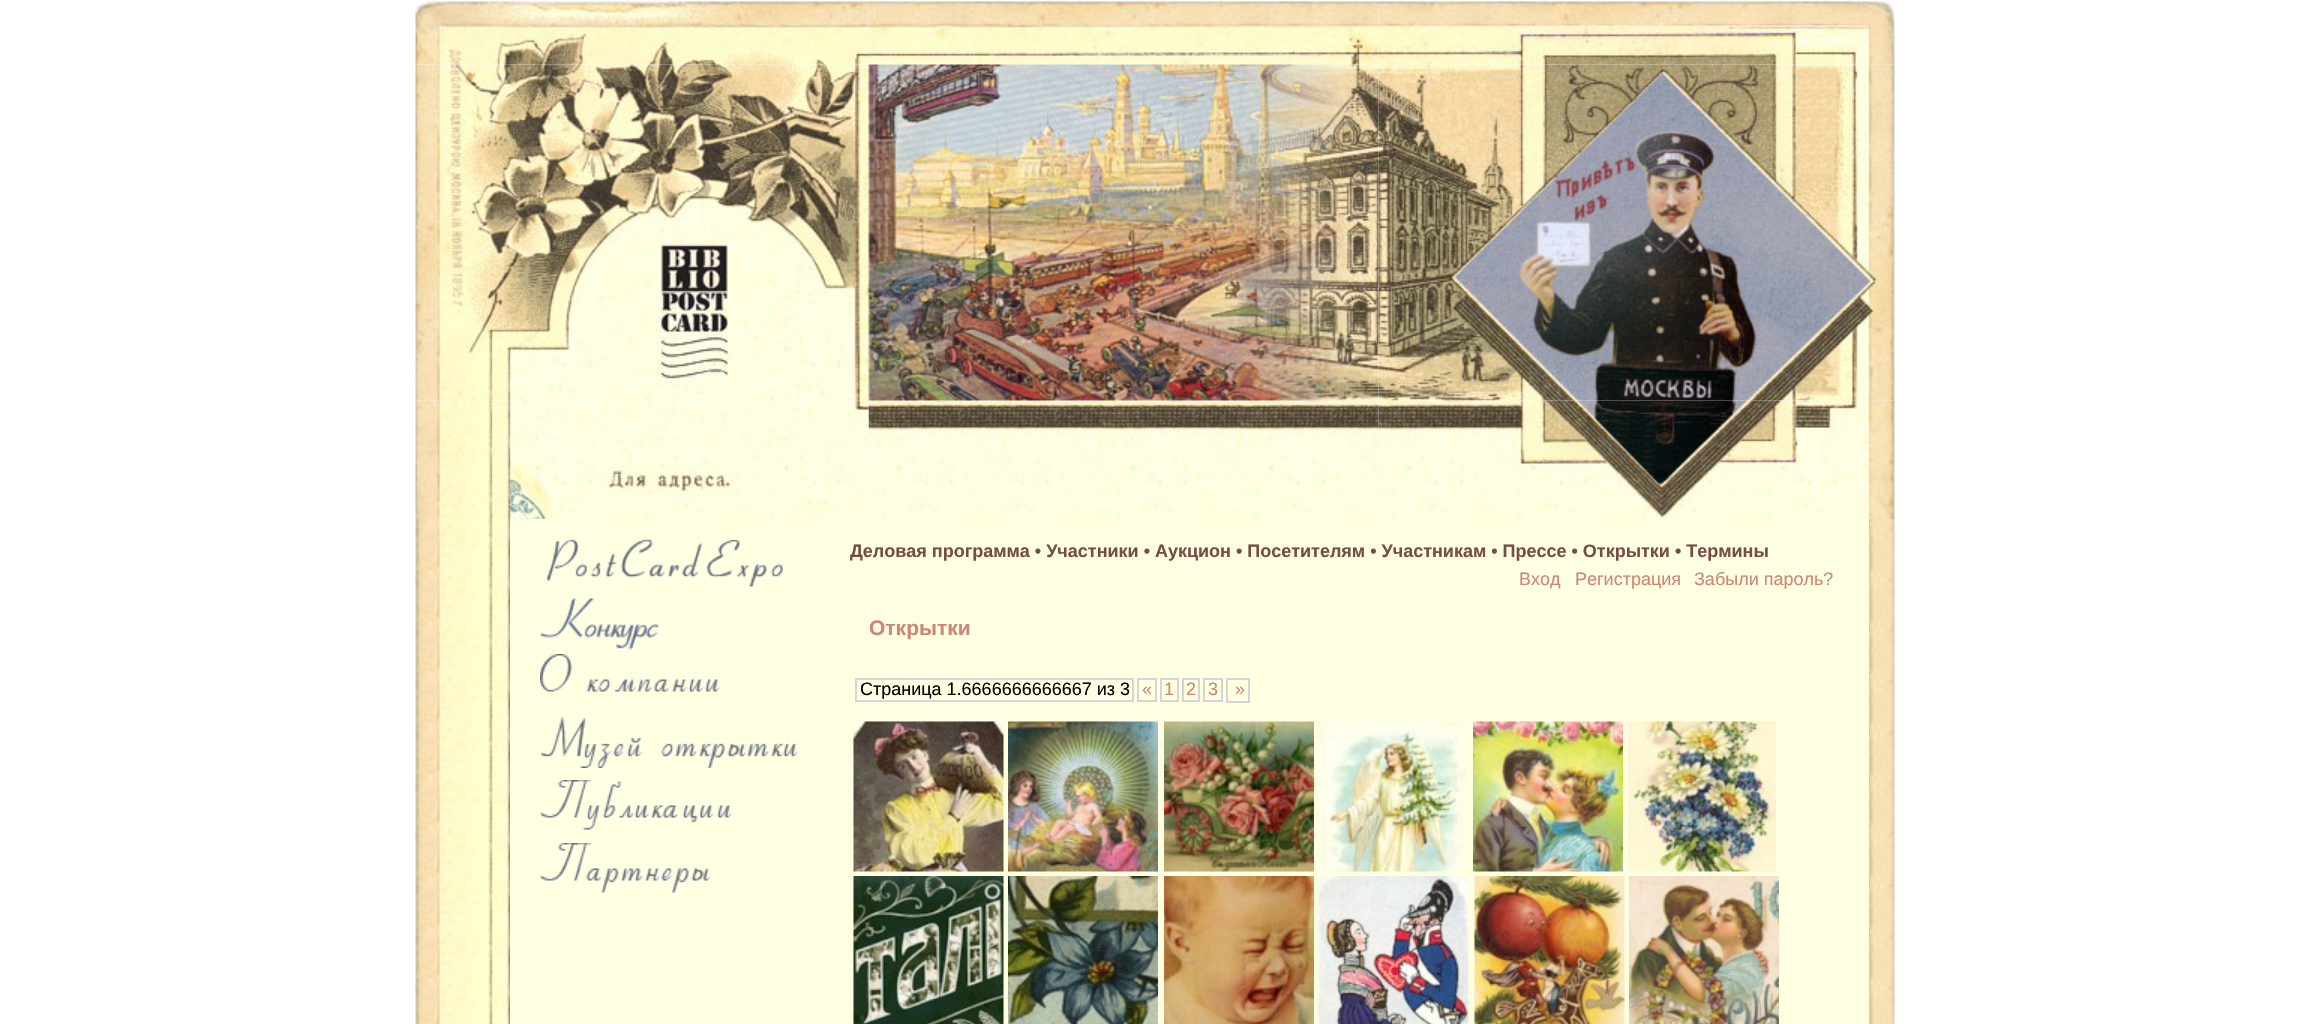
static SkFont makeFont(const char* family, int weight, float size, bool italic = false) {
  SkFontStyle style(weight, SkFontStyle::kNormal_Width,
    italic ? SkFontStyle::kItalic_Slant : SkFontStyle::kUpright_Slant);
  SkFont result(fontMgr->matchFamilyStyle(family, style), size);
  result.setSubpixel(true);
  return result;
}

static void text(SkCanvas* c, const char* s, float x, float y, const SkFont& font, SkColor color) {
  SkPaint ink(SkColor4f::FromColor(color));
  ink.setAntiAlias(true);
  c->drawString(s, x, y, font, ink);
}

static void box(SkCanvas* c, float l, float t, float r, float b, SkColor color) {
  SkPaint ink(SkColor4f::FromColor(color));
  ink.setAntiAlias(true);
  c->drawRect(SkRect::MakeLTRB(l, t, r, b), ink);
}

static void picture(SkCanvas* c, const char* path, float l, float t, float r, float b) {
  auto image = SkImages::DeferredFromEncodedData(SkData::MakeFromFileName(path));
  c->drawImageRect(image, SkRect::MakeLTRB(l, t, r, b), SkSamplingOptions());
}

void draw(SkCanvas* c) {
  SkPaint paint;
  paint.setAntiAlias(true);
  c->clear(0xffffffff);
  picture(c, "img_01.png", 415, 0, 869, 65);
  picture(c, "img_02.png", 868, 0, 1379, 65);
  picture(c, "img_03.png", 1378, 0, 1895, 65);
  picture(c, "img_08.png", 868, 400, 1379, 519);
  picture(c, "img_04.png", 415, 64, 869, 401);
  picture(c, "img_05.png", 868, 64, 1379, 401);
  picture(c, "img_06.png", 1378, 64, 1895, 401);
  picture(c, "img_07.png", 415, 400, 869, 519);
  picture(c, "img_09.png", 1378, 400, 1895, 519);
  box(c, 510, 519, 1869, 1024, 0xffffffe1);
  SkFont face1 = makeFont("Liberation Sans", 700, 18);
  text(c, "Деловая программа • Участники • Аукцион • Посетителям • Участникам • Прессе • Открытки • Термины", 850, 557, face1, 0xff764c43);
  picture(c, "img_10.png", 415, 519, 510, 1024);
  picture(c, "img_11.png", 546, 538, 783, 587);
  picture(c, "img_12.png", 540, 598, 659, 650);
  picture(c, "img_13.png", 540, 654, 720, 692);
  picture(c, "img_14.png", 540, 717, 798, 768);
  picture(c, "img_15.png", 540, 780, 732, 830);
  picture(c, "img_16.png", 540, 843, 710, 893);
  SkFont face2 = makeFont("Liberation Sans", 400, 18);
  text(c, "Вход", 1519, 585, face2, 0xffce8575);
  text(c, "Регистрация", 1575, 585, face2, 0xffce8575);
  text(c, "Забыли пароль?", 1694, 585, face2, 0xffce8575);
  SkFont face3 = makeFont("Liberation Sans", 700, 21);
  text(c, "Открытки", 869, 635, face3, 0xffce8575);
  paint.setStyle(SkPaint::kStroke_Style);
  paint.setStrokeWidth(2);
  paint.setColor(0xffd5d5d5);
  c->drawRect(SkRect::MakeLTRB(856, 679, 1133, 701), paint);
  text(c, "Страница 1.6666666666667 из 3", 860, 695, face2, 0xff000000);
  c->drawRect(SkRect::MakeLTRB(1138, 679, 1156, 701), paint);
  text(c, "«", 1142, 695, face2, 0xffce8575);
  c->drawRect(SkRect::MakeLTRB(1161, 679, 1178, 701), paint);
  text(c, "1", 1164, 695, face2, 0xffce8575);
  c->drawRect(SkRect::MakeLTRB(1183, 679, 1199, 701), paint);
  text(c, "2", 1186, 695, face2, 0xffce8575);
  c->drawRect(SkRect::MakeLTRB(1204, 679, 1222, 701), paint);
  text(c, "3", 1208, 695, face2, 0xffce8575);
  text(c, "»", 1235, 695, face2, 0xffce8575);
  box(c, 1226, 678, 1250, 680, 0xffd5d5d5);
  box(c, 1226, 701, 1235, 703, 0xffd5d5d5);
  box(c, 1226, 678, 1228, 702, 0xffd5d5d5);
  box(c, 1248, 678, 1250, 702, 0xffd5d5d5);
  box(c, 1235, 701, 1250, 703, 0xffd5d5d5);
  picture(c, "img_17.png", 853, 721, 1004, 872);
  picture(c, "img_18.png", 1008, 721, 1158, 872);
  picture(c, "img_19.png", 1164, 721, 1314, 872);
  picture(c, "img_20.png", 1318, 721, 1467, 872);
  picture(c, "img_21.png", 1473, 721, 1623, 872);
  picture(c, "img_22.png", 1627, 721, 1776, 872);
  picture(c, "img_23.png", 853, 876, 1004, 1024);
  picture(c, "img_24.png", 1008, 876, 1158, 1024);
  picture(c, "img_25.png", 1164, 876, 1314, 1024);
  picture(c, "img_26.png", 1318, 876, 1469, 1024);
  picture(c, "img_27.png", 1474, 876, 1625, 1024);
  picture(c, "img_28.png", 1629, 876, 1779, 1024);
  picture(c, "img_29.png", 1869, 519, 1895, 1024);
}
